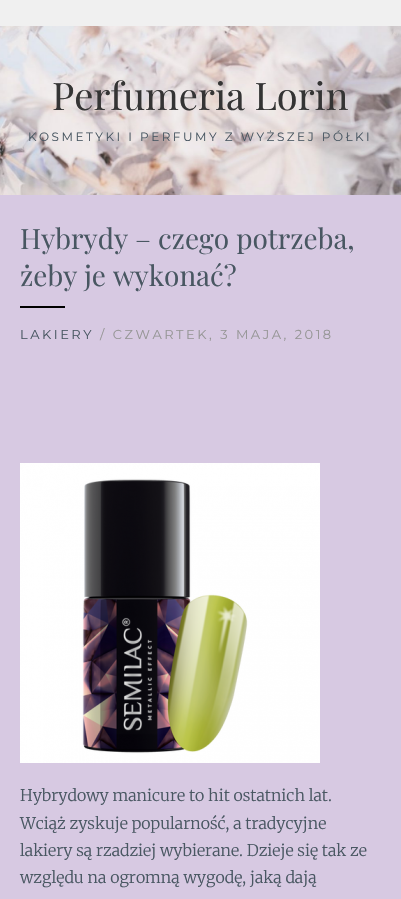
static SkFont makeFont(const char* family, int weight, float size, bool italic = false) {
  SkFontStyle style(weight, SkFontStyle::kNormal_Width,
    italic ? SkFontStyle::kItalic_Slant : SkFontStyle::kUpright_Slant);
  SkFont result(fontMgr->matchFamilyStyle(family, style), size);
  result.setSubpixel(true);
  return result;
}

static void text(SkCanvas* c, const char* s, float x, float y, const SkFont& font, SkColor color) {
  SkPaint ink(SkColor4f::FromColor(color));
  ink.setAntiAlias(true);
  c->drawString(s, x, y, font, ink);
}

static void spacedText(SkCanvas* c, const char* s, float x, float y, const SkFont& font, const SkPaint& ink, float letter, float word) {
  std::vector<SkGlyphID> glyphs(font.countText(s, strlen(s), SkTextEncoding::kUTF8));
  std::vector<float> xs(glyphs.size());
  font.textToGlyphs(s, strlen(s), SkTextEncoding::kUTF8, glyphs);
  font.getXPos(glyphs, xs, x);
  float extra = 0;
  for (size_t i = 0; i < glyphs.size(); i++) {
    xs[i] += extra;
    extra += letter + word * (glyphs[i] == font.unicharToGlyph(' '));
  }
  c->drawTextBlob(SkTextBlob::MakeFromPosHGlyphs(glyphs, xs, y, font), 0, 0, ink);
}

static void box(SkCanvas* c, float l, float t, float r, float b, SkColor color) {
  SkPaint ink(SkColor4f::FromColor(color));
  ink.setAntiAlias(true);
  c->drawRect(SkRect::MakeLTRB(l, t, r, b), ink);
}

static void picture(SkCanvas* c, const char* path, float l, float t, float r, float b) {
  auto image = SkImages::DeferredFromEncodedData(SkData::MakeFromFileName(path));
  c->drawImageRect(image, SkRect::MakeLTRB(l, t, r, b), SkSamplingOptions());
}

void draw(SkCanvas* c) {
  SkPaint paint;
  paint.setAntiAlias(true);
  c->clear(0xffd7c9e2);
  box(c, 0, 0, 401, 26, 0xfff0f0f0);
  picture(c, "img_01.png", 0, 26, 401, 195);
  SkFont face1 = makeFont("Playfair Display", 400, 38);
  text(c, "Perfumeria Lorin", 52, 110, face1, 0xff343434);
  SkFont face2 = makeFont("Montserrat", 400, 12);
  paint.setColor(0xff495762);
  spacedText(c, "KOSMETYKI I PERFUMY Z WYŻSZEJ PÓŁKI", 28, 141, face2, paint, 2.5f, 0);
  SkFont face3 = makeFont("Playfair Display", 400, 28);
  text(c, "Hybrydy – czego potrzeba,", 20, 249, face3, 0xff495762);
  text(c, "żeby je wykonać?", 20, 286, face3, 0xff495762);
  box(c, 20, 306, 65, 308, 0xff000000);
  SkFont face4 = makeFont("Montserrat", 400, 13);
  spacedText(c, "LAKIERY", 20, 339, face4, paint, 2.5f, 0);
  paint.setColor(0xff969696);
  spacedText(c, "/ CZWARTEK, 3 MAJA, 2018", 100, 339, face4, paint, 2.5f, 0);
  picture(c, "img_02.png", 20, 463, 320, 763);
  SkFont face5 = makeFont("Merriweather", 300, 16);
  text(c, "Hybrydowy manicure to hit ostatnich lat.", 20, 801, face5, 0xff495762);
  text(c, "Wciąż zyskuje popularność, a tradycyjne", 20, 829, face5, 0xff495762);
  text(c, "lakiery są rzadziej wybierane. Dzieje się tak ze", 20, 856, face5, 0xff495762);
  text(c, "względu na ogromną wygodę, jaką dają", 20, 883, face5, 0xff495762);
}
